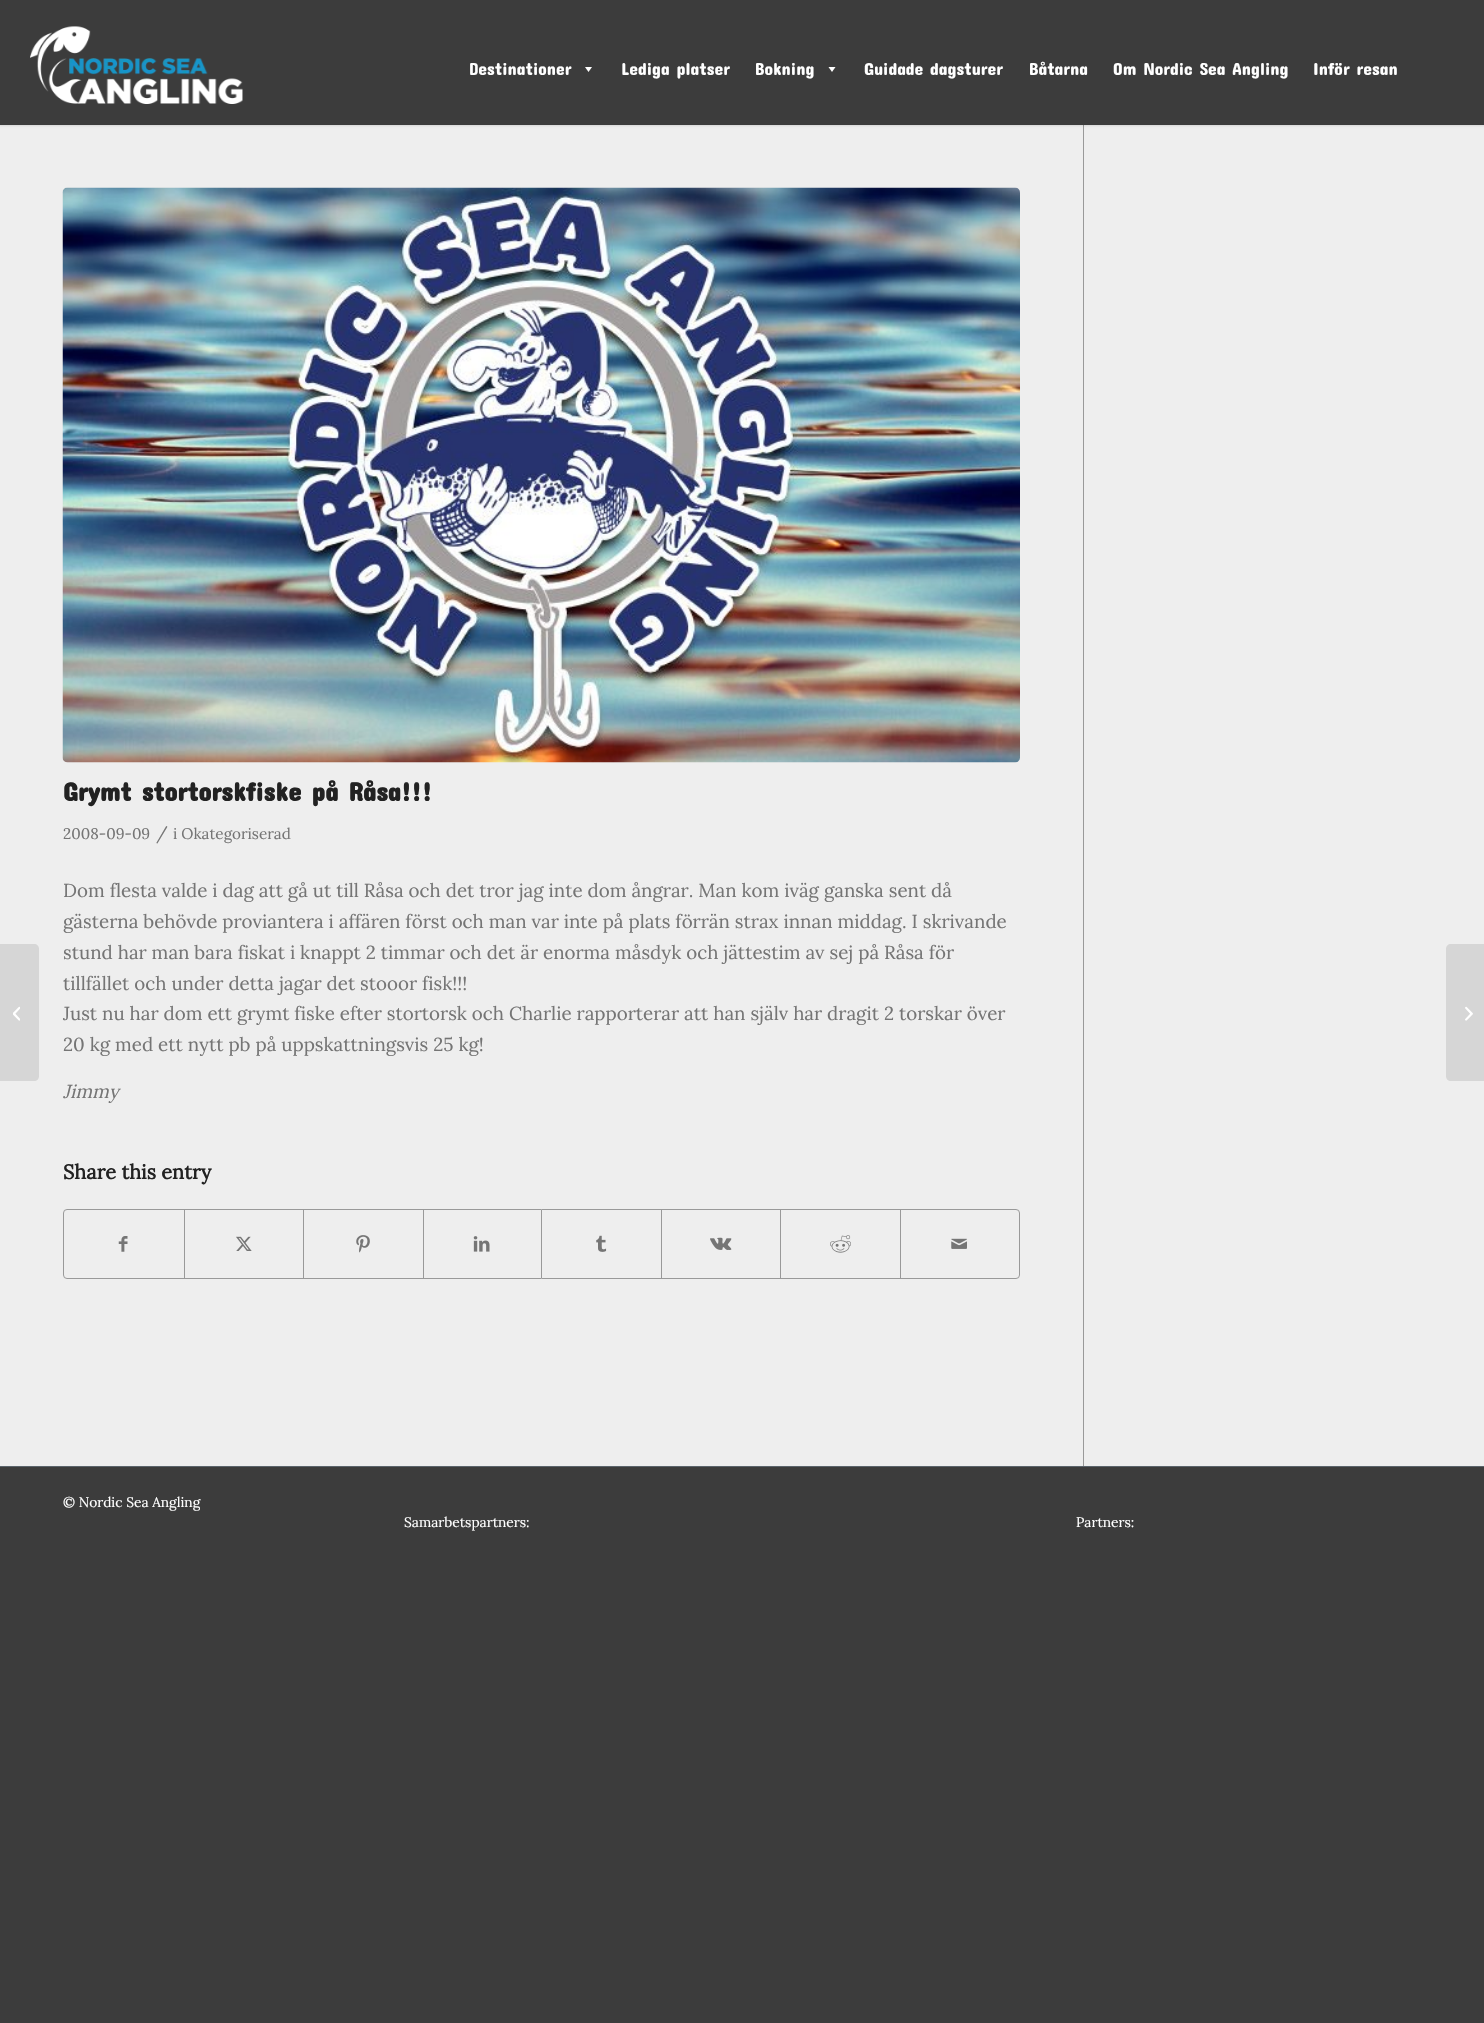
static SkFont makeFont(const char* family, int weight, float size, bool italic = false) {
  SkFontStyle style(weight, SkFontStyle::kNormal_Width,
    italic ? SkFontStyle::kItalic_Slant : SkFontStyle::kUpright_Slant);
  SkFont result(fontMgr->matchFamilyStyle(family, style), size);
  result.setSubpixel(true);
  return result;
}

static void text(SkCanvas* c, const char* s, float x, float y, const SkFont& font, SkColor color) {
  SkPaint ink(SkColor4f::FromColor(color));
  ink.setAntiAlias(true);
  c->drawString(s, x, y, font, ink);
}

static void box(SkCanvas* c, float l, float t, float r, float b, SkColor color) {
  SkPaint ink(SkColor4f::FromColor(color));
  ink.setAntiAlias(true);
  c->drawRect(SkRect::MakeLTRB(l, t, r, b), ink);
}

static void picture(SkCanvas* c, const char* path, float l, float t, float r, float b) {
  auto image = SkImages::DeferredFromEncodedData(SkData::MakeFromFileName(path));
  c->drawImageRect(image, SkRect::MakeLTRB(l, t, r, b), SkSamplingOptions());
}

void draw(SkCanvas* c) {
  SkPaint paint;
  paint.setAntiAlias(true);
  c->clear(0xff3c3c3c);
  box(c, 0, 125, 1484, 1466, 0xffeeeeee);
  box(c, 1083, 125, 1084, 1466, 0xff999999);
  paint.setColor(0x1a000000);
  paint.setMaskFilter(SkMaskFilter::MakeBlur(kNormal_SkBlurStyle, 1));
  c->drawRect(SkRect::MakeLTRB(-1, -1, 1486, 126), paint);
  paint.setMaskFilter(nullptr);
  box(c, 0, 0, 1484, 125, 0xff3c3c3c);
  picture(c, "img_01.png", 30, 26, 243, 104);
  SkFont face1 = makeFont("Concert One", 400, 17.5f);
  text(c, "Destinationer", 469, 75, face1, 0xffffffff);
  paint.setColor(0xffffffff);
  c->drawPath(SkPathBuilder().moveTo(592, 67).lineTo(588.5f, 72).lineTo(585, 67).close().detach(), paint);
  text(c, "Lediga platser", 621, 75, face1, 0xffffffff);
  text(c, "Bokning", 755, 75, face1, 0xffffffff);
  c->drawPath(SkPathBuilder().moveTo(835.5f, 67).lineTo(832, 72).lineTo(828.5f, 67).close().detach(), paint);
  text(c, "Guidade dagsturer", 864, 75, face1, 0xffffffff);
  text(c, "Båtarna", 1029, 75, face1, 0xffffffff);
  text(c, "Om Nordic Sea Angling", 1113, 75, face1, 0xffffffff);
  text(c, "Inför resan", 1313, 75, face1, 0xffffffff);
  paint.setColor(0xffd6d6d6);
  c->drawPath(SkPathBuilder().moveTo(0, 944).lineTo(34, 944).cubicTo(37, 944, 39, 946, 39, 949).lineTo(39, 1076).cubicTo(39, 1079, 37, 1081, 34, 1081).lineTo(0, 1081).close().detach(), paint);
  picture(c, "img_02.png", 13, 1006, 20, 1021);
  picture(c, "img_03.png", 62, 187, 1020, 763);
  SkFont face2 = makeFont("Concert One", 700, 26.25f);
  text(c, "Grymt stortorskfiske på Råsa!!!", 63, 801, face2, 0xff222222);
  SkFont face3 = makeFont("Lora", 400, 15.25f);
  text(c, "2008-09-09", 63, 839, face3, 0xff757575);
  SkFont face4 = makeFont("Lora", 400, 17);
  text(c, "/", 156, 839, face4, 0xff757575);
  text(c, "i Okategoriserad", 173, 839, face3, 0xff757575);
  SkFont face5 = makeFont("Lora", 400, 18.75f);
  text(c, "Dom flesta valde i dag att gå ut till Råsa och det tror jag inte dom ångrar. Man kom iväg ganska sent då", 63, 897, face5, 0xff757575);
  text(c, "gästerna behövde proviantera i affären först och man var inte på plats förrän strax innan middag. I skrivande", 63, 928, face5, 0xff757575);
  text(c, "stund har man bara fiskat i knappt 2 timmar och det är enorma måsdyk och jättestim av sej på Råsa för", 63, 959, face5, 0xff757575);
  text(c, "tillfället och under detta jagar det stooor fisk!!!", 63, 990, face5, 0xff757575);
  text(c, "Just nu har dom ett grymt fiske efter stortorsk och Charlie rapporterar att han själv har dragit 2 torskar över", 63, 1020, face5, 0xff757575);
  text(c, "20 kg med ett nytt pb på uppskattningsvis 25 kg!", 63, 1051, face5, 0xff757575);
  SkFont face6 = makeFont("Lora", 400, 18.75f, true);
  text(c, "Jimmy", 63, 1098, face6, 0xff757575);
  SkFont face7 = makeFont("Lora", 700, 20);
  text(c, "Share this entry", 63, 1179, face7, 0xff222222);
  paint.setStyle(SkPaint::kStroke_Style);
  paint.setStrokeWidth(1);
  paint.setColor(0xff999999);
  c->drawRoundRect(SkRect::MakeLTRB(63.5f, 1209.5f, 1019.5f, 1278.5f), 3.5f, 3.5f, paint);
  picture(c, "img_04.png", 118, 1236, 128, 1252);
  box(c, 184, 1210, 185, 1278, 0xff999999);
  picture(c, "img_05.png", 236, 1236, 252, 1251);
  box(c, 303, 1210, 304, 1278, 0xff999999);
  picture(c, "img_06.png", 356, 1235, 370, 1253);
  box(c, 423, 1210, 424, 1278, 0xff999999);
  picture(c, "img_07.png", 473, 1236, 490, 1252);
  box(c, 541, 1210, 542, 1278, 0xff999999);
  picture(c, "img_08.png", 596, 1235, 607, 1252);
  box(c, 661, 1210, 662, 1278, 0xff999999);
  picture(c, "img_09.png", 710, 1237, 732, 1250);
  box(c, 780, 1210, 781, 1278, 0xff999999);
  picture(c, "img_10.png", 830, 1235, 851, 1253);
  box(c, 900, 1210, 901, 1278, 0xff999999);
  picture(c, "img_11.png", 951, 1238, 967, 1249);
  box(c, 0, 1466, 1484, 1467, 0xff5b646b);
  SkFont face8 = makeFont("Lora", 400, 13.75f);
  text(c, "© Nordic Sea Angling", 63, 1507, face8, 0xffffffff);
  text(c, "Samarbetspartners:", 404, 1527, face8, 0xffffffff);
  text(c, "Partners:", 1076, 1527, face8, 0xffffffff);
  paint.setStyle(SkPaint::kFill_Style);
  paint.setColor(0xffd6d6d6);
  c->drawPath(SkPathBuilder().moveTo(1451, 944).lineTo(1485, 944).lineTo(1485, 1081).lineTo(1451, 1081).cubicTo(1448, 1081, 1446, 1079, 1446, 1076).lineTo(1446, 949).cubicTo(1446, 946, 1448, 944, 1451, 944).close().detach(), paint);
  picture(c, "img_12.png", 1465, 1006, 1473, 1021);
}
